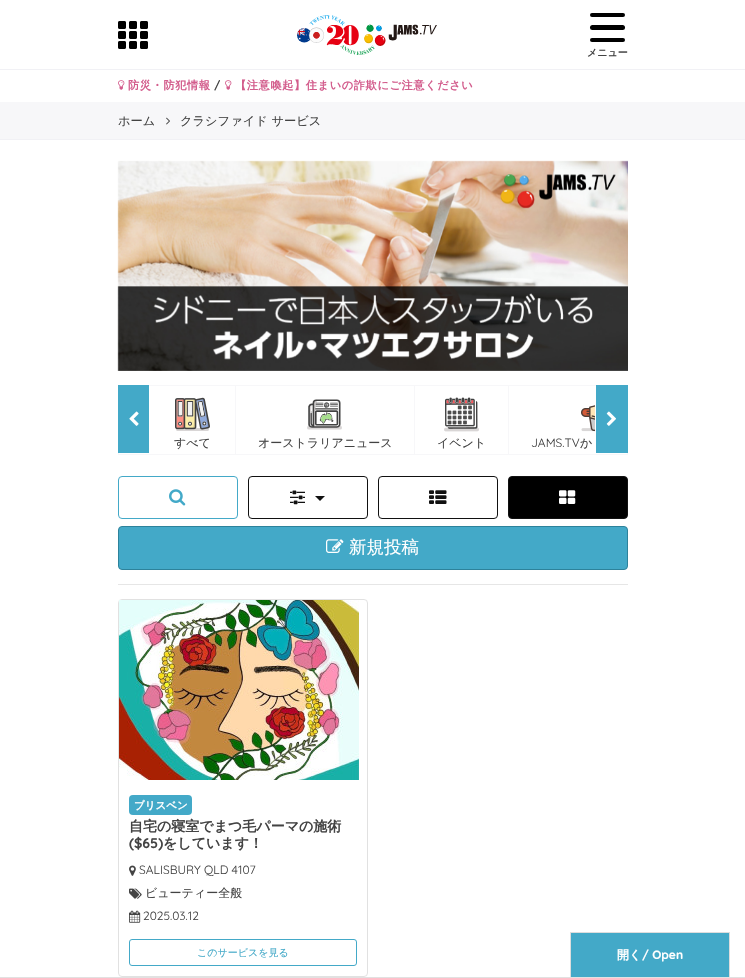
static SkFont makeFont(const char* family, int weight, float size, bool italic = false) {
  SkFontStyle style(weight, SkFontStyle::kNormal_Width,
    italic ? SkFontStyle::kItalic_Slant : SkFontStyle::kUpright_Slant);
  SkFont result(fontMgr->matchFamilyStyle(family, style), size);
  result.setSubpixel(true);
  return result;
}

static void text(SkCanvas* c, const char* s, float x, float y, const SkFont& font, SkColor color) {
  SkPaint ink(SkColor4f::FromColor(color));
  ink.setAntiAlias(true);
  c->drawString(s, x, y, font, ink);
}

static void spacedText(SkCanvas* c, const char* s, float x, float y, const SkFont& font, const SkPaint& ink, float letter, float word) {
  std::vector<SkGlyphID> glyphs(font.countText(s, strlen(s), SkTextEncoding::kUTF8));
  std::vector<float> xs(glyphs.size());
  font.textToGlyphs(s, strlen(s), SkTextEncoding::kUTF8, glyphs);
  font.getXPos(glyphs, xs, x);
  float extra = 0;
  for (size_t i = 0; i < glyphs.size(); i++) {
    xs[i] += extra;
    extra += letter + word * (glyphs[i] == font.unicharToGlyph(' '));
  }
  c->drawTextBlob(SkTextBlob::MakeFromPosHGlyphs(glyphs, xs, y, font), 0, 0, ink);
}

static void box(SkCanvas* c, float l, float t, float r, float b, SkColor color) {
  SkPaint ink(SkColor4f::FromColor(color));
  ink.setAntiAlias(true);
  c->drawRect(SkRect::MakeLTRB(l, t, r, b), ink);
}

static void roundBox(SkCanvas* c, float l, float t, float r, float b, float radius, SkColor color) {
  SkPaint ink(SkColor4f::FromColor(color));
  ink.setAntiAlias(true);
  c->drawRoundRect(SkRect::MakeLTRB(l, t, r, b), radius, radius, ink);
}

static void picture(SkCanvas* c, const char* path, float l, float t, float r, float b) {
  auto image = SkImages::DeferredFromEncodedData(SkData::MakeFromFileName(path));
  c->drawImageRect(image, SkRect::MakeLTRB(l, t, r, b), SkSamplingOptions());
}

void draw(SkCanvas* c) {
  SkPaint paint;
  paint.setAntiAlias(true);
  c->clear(0xffffffff);
  box(c, 0, 69, 745, 70, 0xfff1f1f5);
  picture(c, "img_01.png", 118, 21, 148, 49);
  picture(c, "img_02.png", 297, 15, 437, 55);
  roundBox(c, 590, 13, 625, 17, 2, 0xff000000);
  roundBox(c, 590, 25, 625, 30, 2.5f, 0xff000000);
  roundBox(c, 590, 38, 625, 42, 2, 0xff000000);
  SkFont face1 = makeFont("WenQuanYi Zen Hei", 700, 10);
  text(c, "メニュー", 587, 56, face1, 0xff434343);
  picture(c, "img_03.png", 118, 80, 125, 90);
  SkFont face2 = makeFont("WenQuanYi Zen Hei", 700, 11.2f);
  paint.setColor(0xffd35c8c);
  spacedText(c, "防災・防犯情報", 128, 89, face2, paint, 0.6f, 0);
  SkFont face3 = makeFont("Quicksand", 700, 11.2f);
  paint.setColor(0xff434343);
  spacedText(c, "/", 214, 89, face3, paint, 0.6f, 0);
  picture(c, "img_03.png", 225, 80, 232, 90);
  paint.setColor(0xffd35c8c);
  spacedText(c, "【注意喚起】住まいの詐欺にご注意ください", 235, 89, face2, paint, 0.6f, 0);
  box(c, 0, 102, 745, 139, 0xfff7f7f9);
  box(c, 0, 139, 745, 140, 0xfff1f1f5);
  SkFont face4 = makeFont("WenQuanYi Zen Hei", 500, 12.25f);
  text(c, "ホーム", 118, 125, face4, 0xff434343);
  picture(c, "img_04.png", 166, 117, 170, 125);
  text(c, "クラシファイド サービス", 180, 125, face4, 0xff434343);
  picture(c, "img_05.png", 117, 160, 628, 371);
  paint.setStyle(SkPaint::kStroke_Style);
  paint.setStrokeWidth(1);
  paint.setColor(0xfff7f7f9);
  c->drawRect(SkRect::MakeLTRB(118.5f, 385.5f, 627.5f, 454.5f), paint);
  box(c, 118, 385, 149, 453, 0xff43a9c8);
  picture(c, "img_06.png", 129, 411, 139, 426);
  box(c, 235, 386, 236, 454, 0xfff7f7f9);
  picture(c, "img_07.png", 175, 397, 210, 431);
  SkFont face5 = makeFont("WenQuanYi Zen Hei", 500, 12);
  text(c, "すべて", 174, 447, face5, 0xff434343);
  box(c, 414, 386, 415, 454, 0xfff7f7f9);
  picture(c, "img_08.png", 307, 399, 342, 430);
  text(c, "オーストラリアニュース", 258, 447, face5, 0xff434343);
  box(c, 508, 386, 509, 454, 0xfff7f7f9);
  picture(c, "img_09.png", 444, 397, 479, 432);
  text(c, "イベント", 437, 447, face5, 0xff434343);
  picture(c, "img_10.png", 581, 405, 595, 432);
  SkFont face6 = makeFont("Quicksand", 400, 12);
  text(c, "JAMS.TV", 531, 447, face6, 0xff434343);
  text(c, "か", 580, 447, face5, 0xff434343);
  box(c, 596, 385, 628, 453, 0xff43a9c8);
  picture(c, "img_11.png", 606, 411, 616, 426);
  paint.setColor(0xff43a9c8);
  c->drawRoundRect(SkRect::MakeLTRB(118.5f, 476.5f, 237.5f, 518.5f), 3.5f, 3.5f, paint);
  picture(c, "img_12.png", 169, 489, 186, 506);
  paint.setColor(0xff111111);
  c->drawRoundRect(SkRect::MakeLTRB(248.5f, 476.5f, 367.5f, 518.5f), 3.5f, 3.5f, paint);
  picture(c, "img_13.png", 290, 490, 305, 505);
  paint.setStyle(SkPaint::kFill_Style);
  c->drawPath(SkPathBuilder().moveTo(315, 496).lineTo(325, 496).lineTo(320, 501).close().detach(), paint);
  paint.setStyle(SkPaint::kStroke_Style);
  c->drawRoundRect(SkRect::MakeLTRB(378.5f, 476.5f, 497.5f, 518.5f), 3.5f, 3.5f, paint);
  picture(c, "img_14.png", 429, 490, 447, 504);
  paint.setStyle(SkPaint::kFill_Style);
  paint.setColor(0xff000000);
  c->drawRoundRect(SkRect::MakeLTRB(508.5f, 476.5f, 627.5f, 518.5f), 3.5f, 3.5f, paint);
  paint.setStyle(SkPaint::kStroke_Style);
  paint.setColor(0xff111111);
  c->drawRoundRect(SkRect::MakeLTRB(508.5f, 476.5f, 627.5f, 518.5f), 3.5f, 3.5f, paint);
  picture(c, "img_15.png", 559, 490, 576, 504);
  paint.setStyle(SkPaint::kFill_Style);
  paint.setColor(0xff43a9c8);
  c->drawRoundRect(SkRect::MakeLTRB(118.5f, 526.5f, 627.5f, 569.5f), 3.5f, 3.5f, paint);
  paint.setStyle(SkPaint::kStroke_Style);
  paint.setColor(0xff2d829b);
  c->drawRoundRect(SkRect::MakeLTRB(118.5f, 526.5f, 627.5f, 569.5f), 3.5f, 3.5f, paint);
  picture(c, "img_16.png", 326, 539, 344, 553);
  SkFont face7 = makeFont("WenQuanYi Zen Hei", 500, 17.5f);
  text(c, "新規投稿", 349, 553, face7, 0xffffffff);
  box(c, 118, 584, 628, 585, 0xffe6e6e6);
  paint.setColor(0xffe1e1e1);
  c->drawRoundRect(SkRect::MakeLTRB(118.5f, 599.5f, 367.5f, 976.5f), 3.5f, 3.5f, paint);
  picture(c, "img_17.png", 119, 600, 359, 780);
  roundBox(c, 129, 795, 192, 815, 4, 0xff43a9c8);
  SkFont face8 = makeFont("WenQuanYi Zen Hei", 700, 10.5f);
  text(c, "ブリスベン", 134, 809, face8, 0xffffffff);
  SkFont face9 = makeFont("WenQuanYi Zen Hei", 700, 14);
  text(c, "自宅の寝室でまつ毛パーマの施術", 129, 831, face9, 0xff434343);
  SkFont face10 = makeFont("Quicksand", 700, 14);
  text(c, "($65)", 129, 848, face10, 0xff434343);
  text(c, "をしています！", 163, 848, face9, 0xff434343);
  picture(c, "img_18.png", 129, 865, 136, 876);
  text(c, "SALISBURY QLD 4107", 139, 874, face6, 0xff434343);
  picture(c, "img_19.png", 129, 888, 142, 899);
  text(c, "ビューティー全般", 145, 897, face5, 0xff434343);
  picture(c, "img_20.png", 129, 910, 141, 923);
  text(c, "2025.03.12", 143, 920, face6, 0xff434343);
  paint.setColor(0xff43a9c8);
  c->drawRoundRect(SkRect::MakeLTRB(129.5f, 939.5f, 356.5f, 965.5f), 2.5f, 2.5f, paint);
  SkFont face11 = makeFont("WenQuanYi Zen Hei", 500, 10);
  text(c, "このサービスを見る", 197, 956, face11, 0xff43a9c8);
  box(c, 0, 977, 745, 978, 0xffe1e1e1);
  box(c, 571, 933, 729, 977, 0xff43a9c8);
  box(c, 570, 932, 730, 933, 0xffdddddd);
  box(c, 729, 932, 730, 977, 0xffdddddd);
  box(c, 570, 932, 571, 977, 0xffdddddd);
  SkFont face12 = makeFont("WenQuanYi Zen Hei", 700, 12);
  text(c, "開く", 617, 959, face12, 0xffffffff);
  SkFont face13 = makeFont("Quicksand", 700, 12);
  text(c, "/ Open", 642, 959, face13, 0xffffffff);
}
